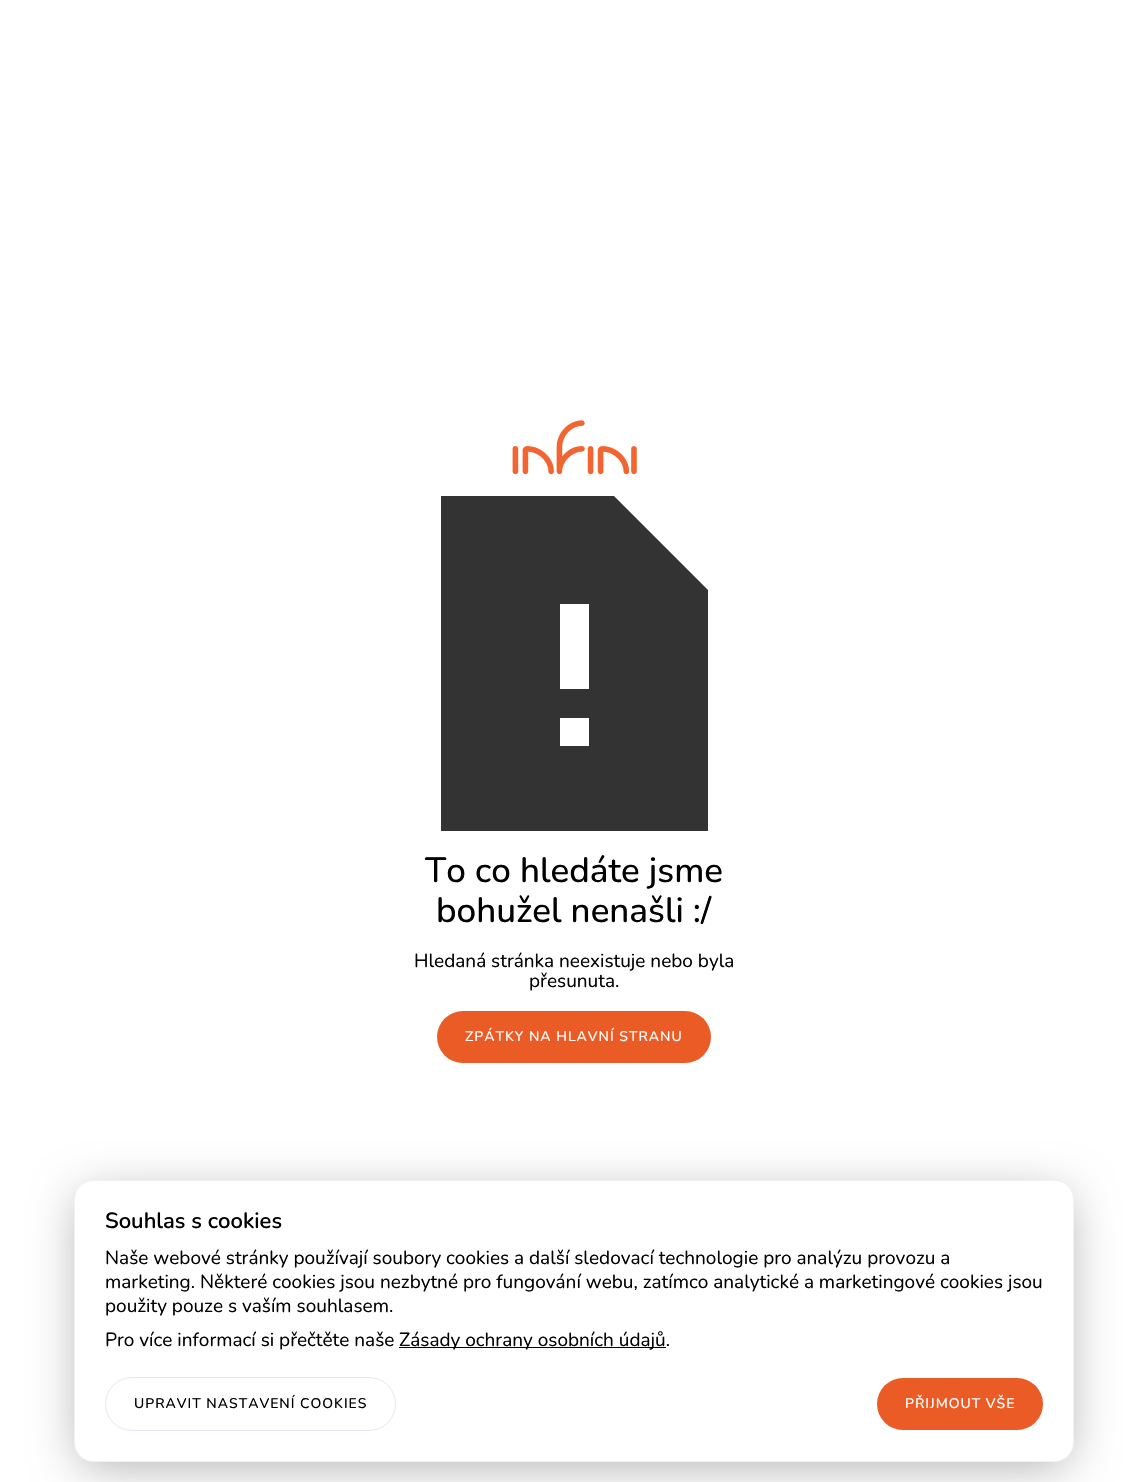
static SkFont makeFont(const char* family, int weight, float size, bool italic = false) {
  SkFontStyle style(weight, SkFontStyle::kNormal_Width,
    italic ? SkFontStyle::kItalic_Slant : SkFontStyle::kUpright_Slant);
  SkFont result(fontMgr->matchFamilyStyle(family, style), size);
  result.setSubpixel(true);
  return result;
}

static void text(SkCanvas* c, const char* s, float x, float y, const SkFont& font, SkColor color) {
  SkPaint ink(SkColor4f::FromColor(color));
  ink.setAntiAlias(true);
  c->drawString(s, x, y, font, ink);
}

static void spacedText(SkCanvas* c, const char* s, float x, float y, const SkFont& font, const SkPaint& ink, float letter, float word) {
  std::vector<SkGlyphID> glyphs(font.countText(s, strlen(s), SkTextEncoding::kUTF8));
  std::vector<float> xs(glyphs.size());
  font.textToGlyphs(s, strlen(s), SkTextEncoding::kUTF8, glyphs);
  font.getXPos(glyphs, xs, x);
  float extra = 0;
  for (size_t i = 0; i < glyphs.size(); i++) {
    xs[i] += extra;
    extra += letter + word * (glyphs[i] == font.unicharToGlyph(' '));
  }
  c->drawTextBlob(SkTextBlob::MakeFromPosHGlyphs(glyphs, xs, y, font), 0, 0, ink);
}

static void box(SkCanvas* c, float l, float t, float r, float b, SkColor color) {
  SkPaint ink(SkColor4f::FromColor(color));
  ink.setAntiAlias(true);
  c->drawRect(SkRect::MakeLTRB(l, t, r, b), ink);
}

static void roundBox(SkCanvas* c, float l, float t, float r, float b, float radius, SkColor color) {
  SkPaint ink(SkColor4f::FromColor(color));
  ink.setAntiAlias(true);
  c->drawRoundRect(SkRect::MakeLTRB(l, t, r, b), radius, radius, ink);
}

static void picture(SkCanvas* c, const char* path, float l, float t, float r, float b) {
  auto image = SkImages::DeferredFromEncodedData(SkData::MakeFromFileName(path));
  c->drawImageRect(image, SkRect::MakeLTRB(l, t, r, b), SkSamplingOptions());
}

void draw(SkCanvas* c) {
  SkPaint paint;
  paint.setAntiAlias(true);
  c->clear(0xffffffff);
  picture(c, "img_01.png", 512, 420, 637, 475);
  paint.setColor(0xff333333);
  c->drawPath(SkPathBuilder(SkPathFillType::kEvenOdd).moveTo(441, 496).lineTo(614, 496).lineTo(708, 590).lineTo(708, 831).lineTo(441, 831).close().moveTo(560, 604).lineTo(589, 604).lineTo(589, 689).lineTo(560, 689).close().moveTo(560, 718).lineTo(589, 718).lineTo(589, 746).lineTo(560, 746).close().detach(), paint);
  SkFont face1 = makeFont("Nunito", 500, 35);
  text(c, "To co hledáte jsme", 425, 882, face1, 0xff000000);
  text(c, "bohužel nenašli :/", 436, 922, face1, 0xff000000);
  SkFont face2 = makeFont("Nunito", 400, 19);
  text(c, "Hledaná stránka neexistuje nebo byla", 414, 967, face2, 0xff000000);
  text(c, "přesunuta.", 529, 987, face2, 0xff000000);
  roundBox(c, 437, 1011, 711, 1063, 26, 0xffeb5b25);
  SkFont face3 = makeFont("Nunito", 500, 14);
  paint.setColor(0xffffffff);
  spacedText(c, "ZPÁTKY NA HLAVNÍ STRANU", 465, 1041, face3, paint, 1, 0);
  paint.setColor(0x52000000);
  paint.setMaskFilter(SkMaskFilter::MakeBlur(kNormal_SkBlurStyle, 24));
  c->drawRoundRect(SkRect::MakeLTRB(80, 1195, 1068, 1465), 14, 14, paint);
  paint.setMaskFilter(nullptr);
  roundBox(c, 74, 1180, 1074, 1462, 20, 0xffffffff);
  paint.setStyle(SkPaint::kStroke_Style);
  paint.setStrokeWidth(1);
  paint.setColor(0x33c0c0d3);
  c->drawRoundRect(SkRect::MakeLTRB(74.5f, 1180.5f, 1073.5f, 1461.5f), 19.5f, 19.5f, paint);
  SkFont face4 = makeFont("Nunito", 600, 22);
  text(c, "Souhlas s cookies", 105, 1228, face4, 0xff000000);
  text(c, "Naše webové stránky používají soubory cookies a další sledovací technologie pro analýzu provozu a", 105, 1264, face2, 0xff000000);
  text(c, "marketing. Některé cookies jsou nezbytné pro fungování webu, zatímco analytické a marketingové cookies jsou", 105, 1288, face2, 0xff000000);
  text(c, "použity pouze s vaším souhlasem.", 105, 1312, face2, 0xff000000);
  text(c, "Pro více informací si přečtěte naše", 105, 1346, face2, 0xff000000);
  box(c, 399, 1347, 666, 1348, 0xff000000);
  text(c, "Zásady ochrany osobních údajů.", 399, 1346, face2, 0xff000000);
  paint.setColor(0xffe2e7f1);
  c->drawRoundRect(SkRect::MakeLTRB(105.5f, 1377.5f, 395.5f, 1430.5f), 26.5f, 26.5f, paint);
  paint.setStyle(SkPaint::kFill_Style);
  paint.setColor(0xff000000);
  spacedText(c, "UPRAVIT NASTAVENÍ COOKIES", 134, 1408, face3, paint, 1, 0);
  roundBox(c, 877, 1378, 1043, 1430, 26, 0xffeb5b25);
  paint.setColor(0xffffffff);
  spacedText(c, "PŘIJMOUT VŠE", 905, 1408, face3, paint, 1, 0);
}
